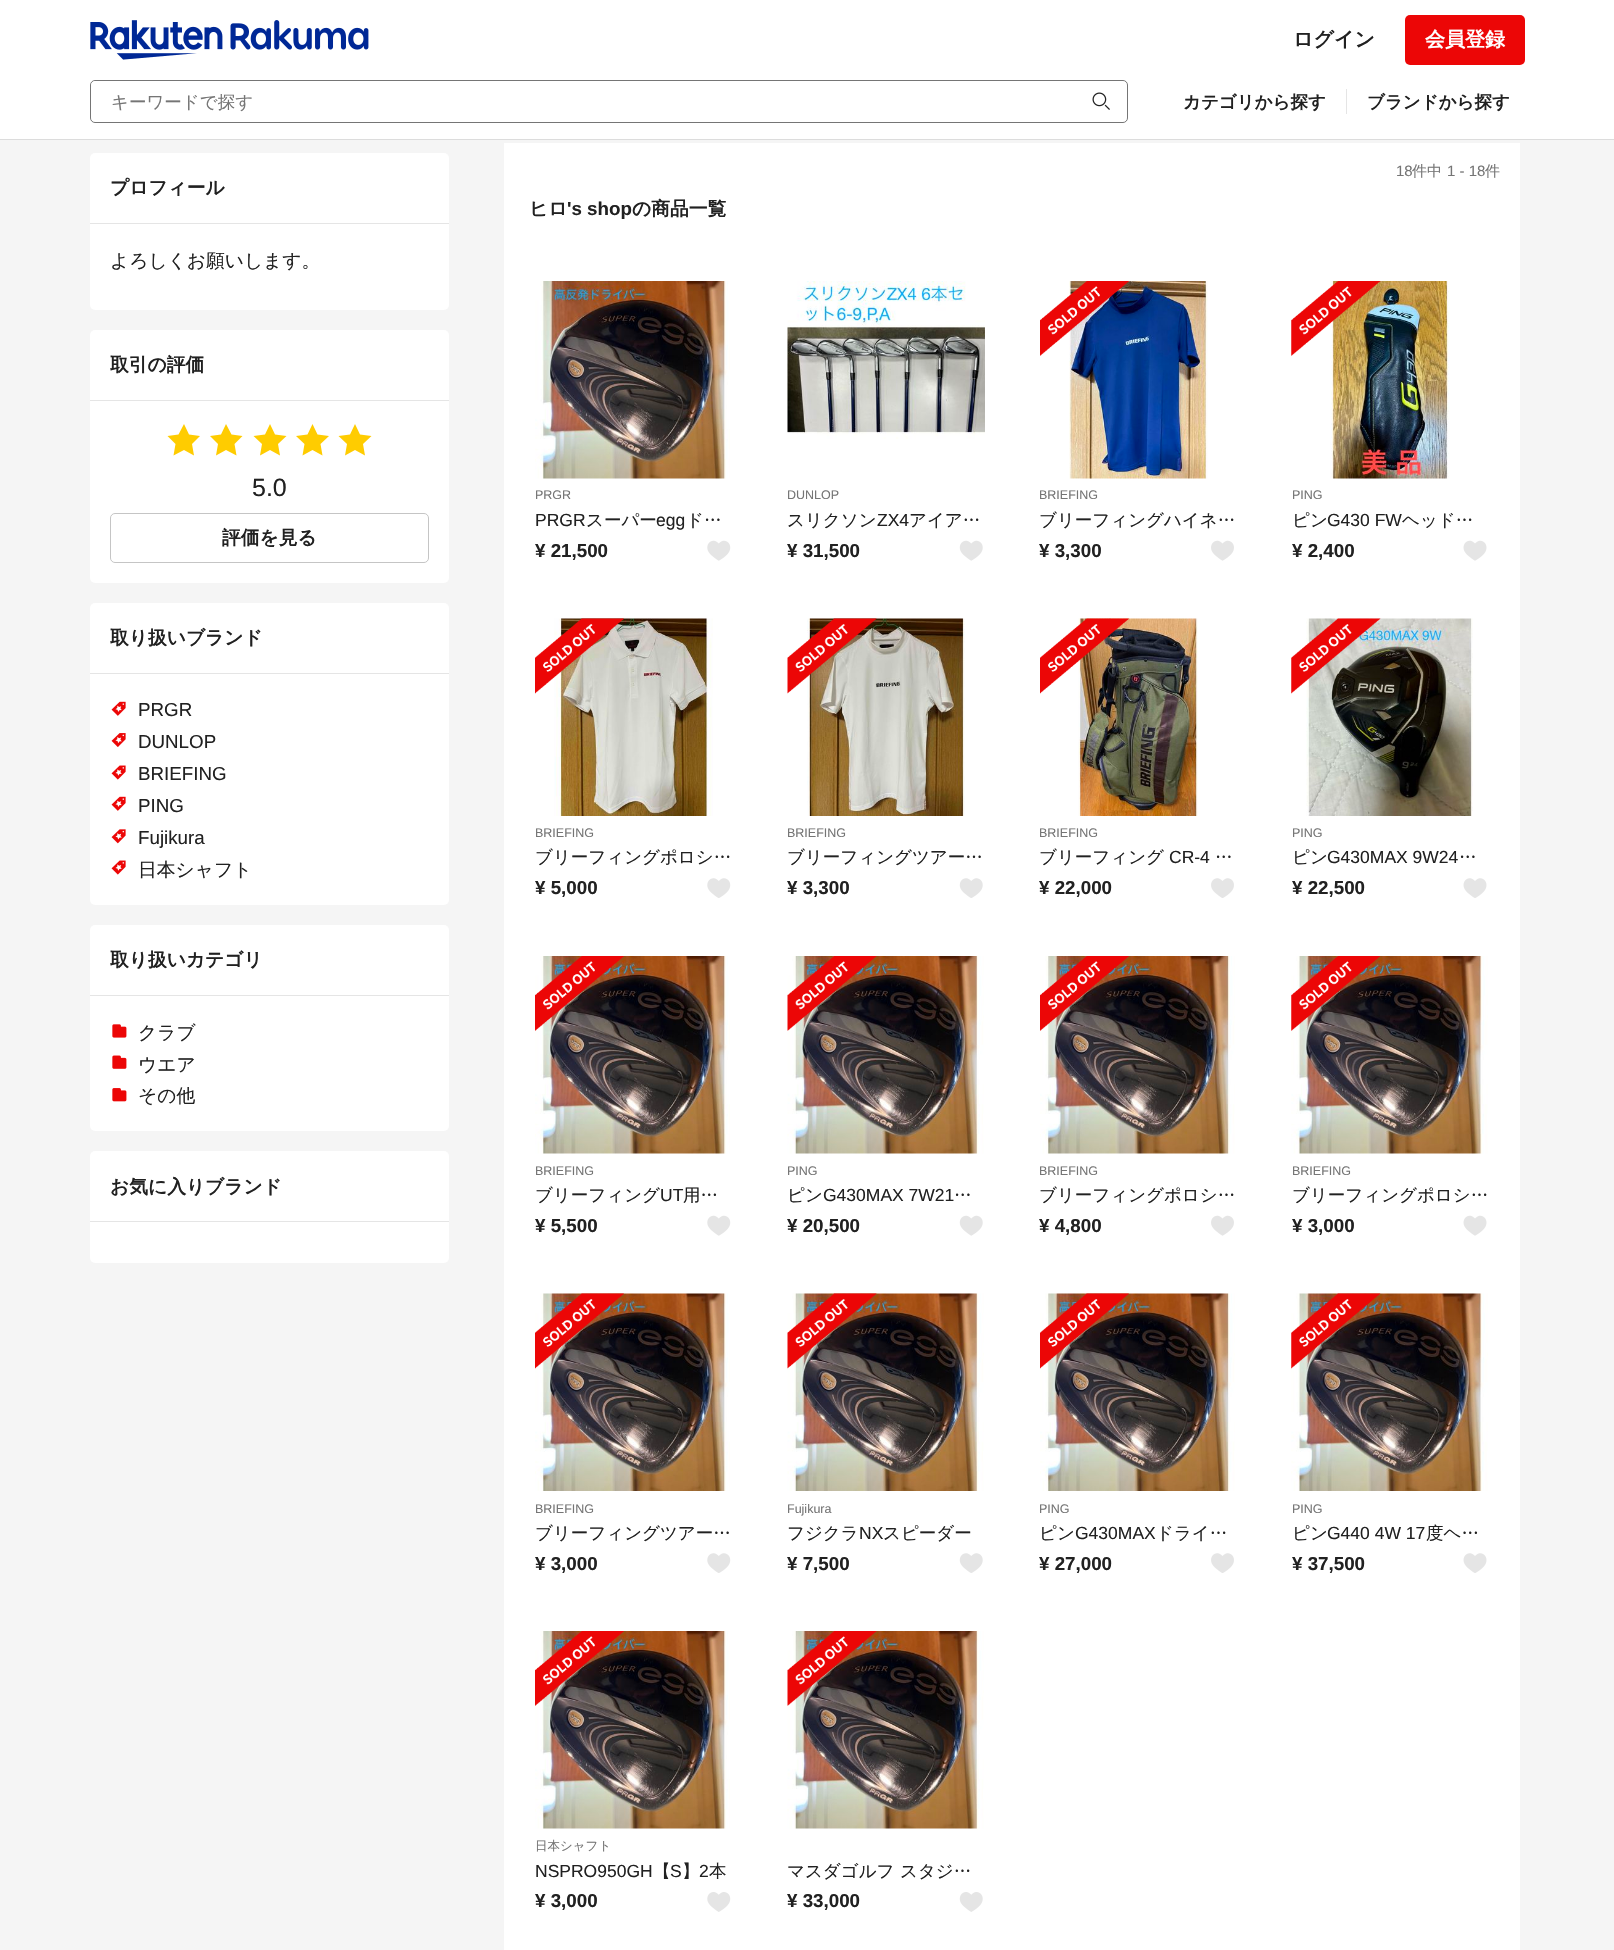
static SkFont makeFont(const char* family, int weight, float size, bool italic = false) {
  SkFontStyle style(weight, SkFontStyle::kNormal_Width,
    italic ? SkFontStyle::kItalic_Slant : SkFontStyle::kUpright_Slant);
  SkFont result(fontMgr->matchFamilyStyle(family, style), size);
  result.setSubpixel(true);
  return result;
}

static void text(SkCanvas* c, const char* s, float x, float y, const SkFont& font, SkColor color) {
  SkPaint ink(SkColor4f::FromColor(color));
  ink.setAntiAlias(true);
  c->drawString(s, x, y, font, ink);
}

static void box(SkCanvas* c, float l, float t, float r, float b, SkColor color) {
  SkPaint ink(SkColor4f::FromColor(color));
  ink.setAntiAlias(true);
  c->drawRect(SkRect::MakeLTRB(l, t, r, b), ink);
}

static void roundBox(SkCanvas* c, float l, float t, float r, float b, float radius, SkColor color) {
  SkPaint ink(SkColor4f::FromColor(color));
  ink.setAntiAlias(true);
  c->drawRoundRect(SkRect::MakeLTRB(l, t, r, b), radius, radius, ink);
}

static void picture(SkCanvas* c, const char* path, float l, float t, float r, float b) {
  auto image = SkImages::DeferredFromEncodedData(SkData::MakeFromFileName(path));
  c->drawImageRect(image, SkRect::MakeLTRB(l, t, r, b), SkSamplingOptions());
}

void draw(SkCanvas* c) {
  SkPaint paint;
  paint.setAntiAlias(true);
  c->clear(0xfff5f5f5);
  box(c, 0, 0, 1614, 139, 0xffffffff);
  box(c, 0, 139, 1614, 140, 0xffdcdcdc);
  picture(c, "img_01.png", 90, 20, 369, 60);
  SkFont face1 = makeFont("WenQuanYi Zen Hei", 700, 20);
  text(c, "ログイン", 1293, 46, face1, 0xff212121);
  roundBox(c, 1405, 15, 1525, 65, 5, 0xffec0606);
  text(c, "会員登録", 1425, 46, face1, 0xffffffff);
  paint.setStyle(SkPaint::kStroke_Style);
  paint.setStrokeWidth(1);
  paint.setColor(0xff757575);
  c->drawRoundRect(SkRect::MakeLTRB(90.5f, 80.5f, 1127.5f, 122.5f), 4.5f, 4.5f, paint);
  roundBox(c, 91, 81, 1126, 121, 5, 0xffffffff);
  SkFont face2 = makeFont("WenQuanYi Zen Hei", 500, 17.5f);
  text(c, "キーワードで探す", 111, 108, face2, 0xff757575);
  picture(c, "img_02.png", 1092, 92, 1110, 110);
  SkFont face3 = makeFont("WenQuanYi Zen Hei", 700, 17.5f);
  text(c, "カテゴリから探す", 1183, 108, face3, 0xff212121);
  box(c, 1346, 89, 1347, 114, 0xffe5e5e5);
  text(c, "ブランドから探す", 1367, 108, face3, 0xff212121);
  roundBox(c, 90, 153, 449, 310, 5, 0xffffffff);
  box(c, 90, 223, 449, 224, 0xffe5e5e5);
  SkFont face4 = makeFont("WenQuanYi Zen Hei", 700, 18.75f);
  text(c, "プロフィール", 110, 194, face4, 0xff212121);
  SkFont face5 = makeFont("WenQuanYi Zen Hei", 500, 18.75f);
  text(c, "よろしくお願いします。", 110, 267, face5, 0xff212121);
  roundBox(c, 90, 330, 449, 583, 5, 0xffffffff);
  box(c, 90, 400, 449, 401, 0xffe5e5e5);
  text(c, "取引の評価", 110, 371, face4, 0xff212121);
  paint.setStyle(SkPaint::kFill_Style);
  paint.setColor(0xffffcc00);
  c->drawPath(SkPathBuilder().moveTo(184, 424).lineTo(189, 434.5f).lineTo(200, 436).lineTo(192, 444).lineTo(194, 455.5f).lineTo(184, 450).lineTo(173.5f, 455.5f).lineTo(175.5f, 444).lineTo(167.5f, 436).lineTo(178.5f, 434.5f).close().detach(), paint);
  c->drawPath(SkPathBuilder().moveTo(226, 424).lineTo(231.5f, 434.5f).lineTo(242.5f, 436).lineTo(234.5f, 444).lineTo(236.5f, 455.5f).lineTo(226, 450).lineTo(216, 455.5f).lineTo(218, 444).lineTo(210, 436).lineTo(221, 434.5f).close().detach(), paint);
  c->drawPath(SkPathBuilder().moveTo(270, 424).lineTo(275, 434.5f).lineTo(286.5f, 436).lineTo(278, 444).lineTo(280, 455.5f).lineTo(270, 450).lineTo(260, 455.5f).lineTo(262, 444).lineTo(253.5f, 436).lineTo(265, 434.5f).close().detach(), paint);
  c->drawPath(SkPathBuilder().moveTo(312.5f, 424).lineTo(317.5f, 434.5f).lineTo(329, 436).lineTo(320.5f, 444).lineTo(322.5f, 455.5f).lineTo(312.5f, 450).lineTo(302.5f, 455.5f).lineTo(304.5f, 444).lineTo(296, 436).lineTo(307.5f, 434.5f).close().detach(), paint);
  c->drawPath(SkPathBuilder().moveTo(355, 424).lineTo(360, 434.5f).lineTo(371.5f, 436).lineTo(363, 444).lineTo(365, 455.5f).lineTo(355, 450).lineTo(345, 455.5f).lineTo(347, 444).lineTo(338.5f, 436).lineTo(350, 434.5f).close().detach(), paint);
  SkFont face6 = makeFont("Liberation Sans", 400, 25);
  text(c, "5.0", 252, 496, face6, 0xff212121);
  paint.setStyle(SkPaint::kStroke_Style);
  paint.setColor(0xffc5c5c5);
  c->drawRoundRect(SkRect::MakeLTRB(110.5f, 513.5f, 428.5f, 562.5f), 4.5f, 4.5f, paint);
  text(c, "評価を見る", 222, 544, face4, 0xff212121);
  roundBox(c, 90, 603, 449, 905, 5, 0xffffffff);
  box(c, 90, 673, 449, 674, 0xffe5e5e5);
  text(c, "取り扱いブランド", 110, 644, face4, 0xff212121);
  picture(c, "img_03.png", 111, 701, 126, 716);
  SkFont face7 = makeFont("Liberation Sans", 400, 18.75f);
  text(c, "PRGR", 138, 716, face7, 0xff212121);
  picture(c, "img_04.png", 111, 733, 126, 747);
  text(c, "DUNLOP", 138, 748, face7, 0xff212121);
  picture(c, "img_05.png", 111, 765, 126, 780);
  text(c, "BRIEFING", 138, 780, face7, 0xff212121);
  picture(c, "img_03.png", 111, 796, 126, 811);
  text(c, "PING", 138, 812, face7, 0xff212121);
  picture(c, "img_06.png", 111, 829, 126, 844);
  text(c, "Fujikura", 138, 844, face7, 0xff212121);
  picture(c, "img_05.png", 111, 860, 126, 875);
  text(c, "日本シャフト", 138, 876, face5, 0xff212121);
  roundBox(c, 90, 925, 449, 1131, 5, 0xffffffff);
  box(c, 90, 995, 449, 996, 0xffe5e5e5);
  text(c, "取り扱いカテゴリ", 110, 966, face4, 0xff212121);
  picture(c, "img_07.png", 112, 1024, 127, 1038);
  text(c, "クラブ", 138, 1039, face5, 0xff212121);
  picture(c, "img_08.png", 112, 1055, 127, 1069);
  text(c, "ウエア", 138, 1071, face5, 0xff212121);
  picture(c, "img_09.png", 112, 1088, 127, 1102);
  text(c, "その他", 138, 1102, face5, 0xff212121);
  roundBox(c, 90, 1151, 449, 1263, 5, 0xffffffff);
  box(c, 90, 1221, 449, 1222, 0xffe5e5e5);
  text(c, "お気に入りブランド", 110, 1193, face4, 0xff212121);
  box(c, 504, 143, 1520, 1950, 0xffffffff);
  SkFont face8 = makeFont("Liberation Sans", 400, 15);
  text(c, "18", 1396, 176, face8, 0xff757575);
  SkFont face9 = makeFont("WenQuanYi Zen Hei", 500, 15);
  text(c, "件中", 1412, 176, face9, 0xff757575);
  text(c, "1 - 18", 1447, 176, face8, 0xff757575);
  text(c, "件", 1485, 176, face9, 0xff757575);
  text(c, "ヒロ", 529, 215, face4, 0xff212121);
  SkFont face10 = makeFont("Liberation Sans", 700, 18.75f);
  text(c, "'s shop", 567, 215, face10, 0xff212121);
  text(c, "の商品一覧", 632, 215, face4, 0xff212121);
  picture(c, "img_10.png", 535, 281, 730, 479);
  SkFont face11 = makeFont("Liberation Sans", 400, 12.5f);
  text(c, "PRGR", 535, 499, face11, 0xff757575);
  SkFont face12 = makeFont("Liberation Sans", 400, 17.5f);
  text(c, "PRGR", 535, 526, face12, 0xff212121);
  text(c, "スーパー", 586, 526, face2, 0xff212121);
  text(c, "egg", 656, 526, face12, 0xff212121);
  text(c, "ド…", 686, 526, face2, 0xff212121);
  text(c, "¥ 21,500", 535, 557, face10, 0xff212121);
  picture(c, "img_11.png", 707, 540, 731, 561);
  picture(c, "img_12.png", 787, 281, 985, 439);
  text(c, "DUNLOP", 787, 499, face11, 0xff757575);
  text(c, "スリクソン", 787, 526, face2, 0xff212121);
  text(c, "ZX4", 877, 526, face12, 0xff212121);
  text(c, "アイア…", 909, 526, face2, 0xff212121);
  text(c, "¥ 31,500", 787, 557, face10, 0xff212121);
  picture(c, "img_13.png", 959, 540, 983, 561);
  picture(c, "img_15.png", 1069, 281, 1208, 479);
  picture(c, "img_14.png", 1040, 281, 1129, 356);
  text(c, "BRIEFING", 1039, 499, face11, 0xff757575);
  text(c, "ブリーフィングハイネ…", 1039, 526, face2, 0xff212121);
  text(c, "¥ 3,300", 1039, 557, face10, 0xff212121);
  picture(c, "img_16.png", 1211, 540, 1234, 561);
  picture(c, "img_18.png", 1330, 281, 1450, 479);
  picture(c, "img_17.png", 1291, 281, 1381, 356);
  text(c, "PING", 1292, 499, face11, 0xff757575);
  text(c, "ピン", 1292, 526, face2, 0xff212121);
  text(c, "G430 FW", 1327, 526, face12, 0xff212121);
  text(c, "ヘッド…", 1402, 526, face2, 0xff212121);
  text(c, "¥ 2,400", 1292, 557, face10, 0xff212121);
  picture(c, "img_19.png", 1463, 540, 1487, 561);
  picture(c, "img_21.png", 554, 618, 713, 816);
  picture(c, "img_20.png", 535, 618, 624, 694);
  text(c, "BRIEFING", 535, 837, face11, 0xff757575);
  text(c, "ブリーフィングポロシ…", 535, 863, face2, 0xff212121);
  text(c, "¥ 5,000", 535, 894, face10, 0xff212121);
  picture(c, "img_22.png", 707, 878, 731, 898);
  picture(c, "img_24.png", 807, 618, 965, 816);
  picture(c, "img_23.png", 787, 618, 877, 694);
  text(c, "BRIEFING", 787, 837, face11, 0xff757575);
  text(c, "ブリーフィングツアー…", 787, 863, face2, 0xff212121);
  text(c, "¥ 3,300", 787, 894, face10, 0xff212121);
  picture(c, "img_25.png", 959, 878, 983, 898);
  picture(c, "img_27.png", 1078, 618, 1198, 816);
  picture(c, "img_26.png", 1040, 618, 1129, 694);
  text(c, "BRIEFING", 1039, 837, face11, 0xff757575);
  text(c, "ブリーフィング", 1039, 863, face2, 0xff212121);
  text(c, "CR-4", 1169, 863, face12, 0xff212121);
  text(c, "…", 1215, 863, face2, 0xff212121);
  text(c, "¥ 22,000", 1039, 894, face10, 0xff212121);
  picture(c, "img_28.png", 1211, 878, 1234, 898);
  picture(c, "img_30.png", 1306, 618, 1473, 816);
  picture(c, "img_29.png", 1291, 618, 1381, 694);
  text(c, "PING", 1292, 837, face11, 0xff757575);
  text(c, "ピン", 1292, 863, face2, 0xff212121);
  text(c, "G430MAX 9W24", 1327, 863, face12, 0xff212121);
  text(c, "…", 1459, 863, face2, 0xff212121);
  text(c, "¥ 22,500", 1292, 894, face10, 0xff212121);
  picture(c, "img_31.png", 1463, 878, 1487, 898);
  picture(c, "img_10.png", 535, 956, 730, 1154);
  picture(c, "img_32.png", 535, 956, 624, 1031);
  text(c, "BRIEFING", 535, 1175, face11, 0xff757575);
  text(c, "ブリーフィング", 535, 1201, face2, 0xff212121);
  text(c, "UT", 660, 1201, face12, 0xff212121);
  text(c, "用…", 683, 1201, face2, 0xff212121);
  text(c, "¥ 5,500", 535, 1232, face10, 0xff212121);
  picture(c, "img_11.png", 707, 1215, 731, 1236);
  picture(c, "img_33.png", 787, 956, 984, 1154);
  picture(c, "img_34.png", 787, 956, 877, 1031);
  text(c, "PING", 787, 1175, face11, 0xff757575);
  text(c, "ピン", 787, 1201, face2, 0xff212121);
  text(c, "G430MAX 7W21", 823, 1201, face12, 0xff212121);
  text(c, "…", 954, 1201, face2, 0xff212121);
  text(c, "¥ 20,500", 787, 1232, face10, 0xff212121);
  picture(c, "img_13.png", 959, 1215, 983, 1236);
  picture(c, "img_35.png", 1040, 956, 1235, 1154);
  picture(c, "img_36.png", 1040, 956, 1129, 1031);
  text(c, "BRIEFING", 1039, 1175, face11, 0xff757575);
  text(c, "ブリーフィングポロシ…", 1039, 1201, face2, 0xff212121);
  text(c, "¥ 4,800", 1039, 1232, face10, 0xff212121);
  picture(c, "img_16.png", 1211, 1215, 1234, 1236);
  picture(c, "img_37.png", 1291, 956, 1488, 1154);
  picture(c, "img_38.png", 1291, 956, 1381, 1031);
  text(c, "BRIEFING", 1292, 1175, face11, 0xff757575);
  text(c, "ブリーフィングポロシ…", 1292, 1201, face2, 0xff212121);
  text(c, "¥ 3,000", 1292, 1232, face10, 0xff212121);
  picture(c, "img_19.png", 1463, 1215, 1487, 1236);
  picture(c, "img_39.png", 535, 1293, 730, 1491);
  picture(c, "img_40.png", 535, 1293, 624, 1369);
  text(c, "BRIEFING", 535, 1513, face11, 0xff757575);
  text(c, "ブリーフィングツアー…", 535, 1539, face2, 0xff212121);
  text(c, "¥ 3,000", 535, 1570, face10, 0xff212121);
  picture(c, "img_22.png", 707, 1553, 731, 1573);
  picture(c, "img_41.png", 787, 1293, 984, 1491);
  picture(c, "img_42.png", 787, 1293, 877, 1369);
  text(c, "Fujikura", 787, 1513, face11, 0xff757575);
  text(c, "フジクラ", 787, 1539, face2, 0xff212121);
  text(c, "NX", 859, 1539, face12, 0xff212121);
  text(c, "スピーダー", 883, 1539, face2, 0xff212121);
  text(c, "¥ 7,500", 787, 1570, face10, 0xff212121);
  picture(c, "img_25.png", 959, 1553, 983, 1573);
  picture(c, "img_43.png", 1040, 1293, 1235, 1491);
  picture(c, "img_44.png", 1040, 1293, 1129, 1369);
  text(c, "PING", 1039, 1513, face11, 0xff757575);
  text(c, "ピン", 1039, 1539, face2, 0xff212121);
  text(c, "G430MAX", 1075, 1539, face12, 0xff212121);
  text(c, "ドライ…", 1156, 1539, face2, 0xff212121);
  text(c, "¥ 27,000", 1039, 1570, face10, 0xff212121);
  picture(c, "img_28.png", 1211, 1553, 1234, 1573);
  picture(c, "img_45.png", 1291, 1293, 1488, 1491);
  picture(c, "img_46.png", 1291, 1293, 1381, 1369);
  text(c, "PING", 1292, 1513, face11, 0xff757575);
  text(c, "ピン", 1292, 1539, face2, 0xff212121);
  text(c, "G440 4W 17", 1327, 1539, face12, 0xff212121);
  text(c, "度ヘ…", 1426, 1539, face2, 0xff212121);
  text(c, "¥ 37,500", 1292, 1570, face10, 0xff212121);
  picture(c, "img_31.png", 1463, 1553, 1487, 1573);
  picture(c, "img_10.png", 535, 1631, 730, 1829);
  picture(c, "img_32.png", 535, 1631, 624, 1706);
  SkFont face13 = makeFont("WenQuanYi Zen Hei", 500, 12.5f);
  text(c, "日本シャフト", 535, 1850, face13, 0xff757575);
  text(c, "NSPRO950GH", 535, 1877, face12, 0xff212121);
  text(c, "【", 653, 1877, face2, 0xff212121);
  text(c, "S", 670, 1877, face12, 0xff212121);
  text(c, "】", 682, 1877, face2, 0xff212121);
  text(c, "2", 699, 1877, face12, 0xff212121);
  text(c, "本", 709, 1877, face2, 0xff212121);
  text(c, "¥ 3,000", 535, 1907, face10, 0xff212121);
  picture(c, "img_47.png", 707, 1892, 731, 1912);
  picture(c, "img_33.png", 787, 1631, 984, 1829);
  picture(c, "img_34.png", 787, 1631, 877, 1706);
  text(c, "マスダゴルフ", 787, 1877, face2, 0xff212121);
  text(c, "スタジ…", 900, 1877, face2, 0xff212121);
  text(c, "¥ 33,000", 787, 1907, face10, 0xff212121);
  picture(c, "img_48.png", 959, 1892, 983, 1912);
}
